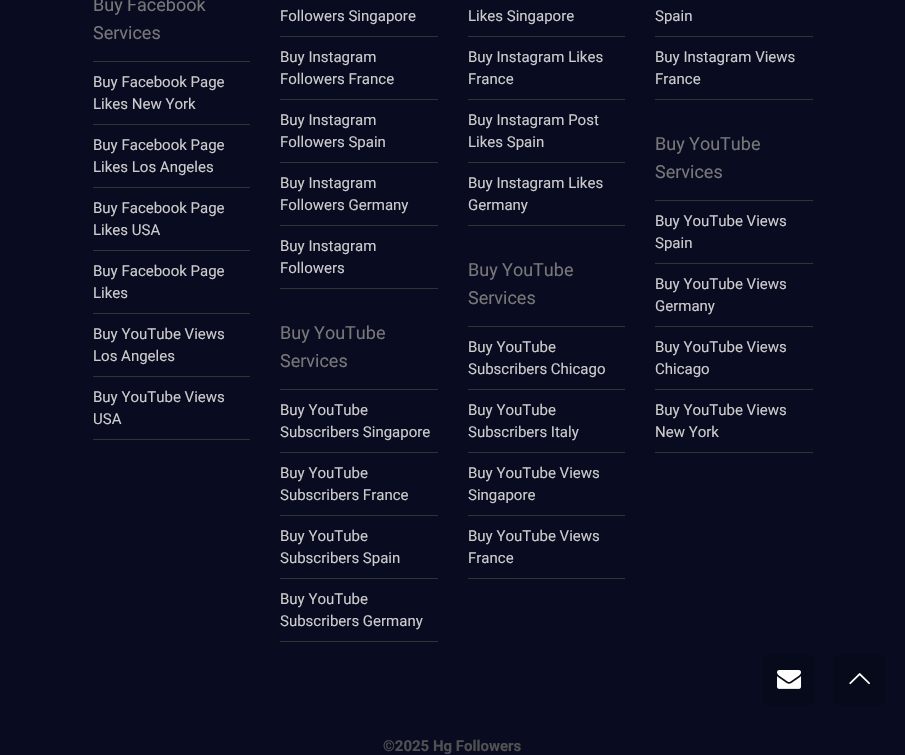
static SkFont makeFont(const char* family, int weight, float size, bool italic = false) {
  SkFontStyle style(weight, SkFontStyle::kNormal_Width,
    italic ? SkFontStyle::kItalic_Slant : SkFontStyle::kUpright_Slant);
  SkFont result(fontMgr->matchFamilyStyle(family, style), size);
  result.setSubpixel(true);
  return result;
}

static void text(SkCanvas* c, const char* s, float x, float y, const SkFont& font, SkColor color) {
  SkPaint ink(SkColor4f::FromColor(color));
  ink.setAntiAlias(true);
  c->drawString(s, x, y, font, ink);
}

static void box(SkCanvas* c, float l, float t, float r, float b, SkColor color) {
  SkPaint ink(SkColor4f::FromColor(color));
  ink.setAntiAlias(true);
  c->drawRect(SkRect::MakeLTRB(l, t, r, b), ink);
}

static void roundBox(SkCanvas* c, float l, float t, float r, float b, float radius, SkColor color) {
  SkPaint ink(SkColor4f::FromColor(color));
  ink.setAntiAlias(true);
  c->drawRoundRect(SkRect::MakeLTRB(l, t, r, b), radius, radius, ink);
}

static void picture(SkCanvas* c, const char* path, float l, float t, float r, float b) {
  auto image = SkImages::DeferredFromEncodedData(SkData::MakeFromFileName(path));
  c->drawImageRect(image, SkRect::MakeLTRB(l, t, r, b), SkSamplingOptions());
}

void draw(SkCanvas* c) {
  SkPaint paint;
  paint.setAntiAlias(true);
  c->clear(0xff090c21);
  SkFont face1 = makeFont("Roboto", 400, 18);
  text(c, "Buy Facebook", 93, 11, face1, 0xff777777);
  text(c, "Services", 93, 39, face1, 0xff777777);
  box(c, 93, 61, 250, 62, 0xff333333);
  box(c, 93, 124, 250, 125, 0xff333333);
  SkFont face2 = makeFont("Roboto", 400, 15);
  text(c, "Buy Facebook Page", 93, 87, face2, 0xffcccccc);
  text(c, "Likes New York", 93, 109, face2, 0xffcccccc);
  box(c, 93, 187, 250, 188, 0xff333333);
  text(c, "Buy Facebook Page", 93, 150, face2, 0xffcccccc);
  text(c, "Likes Los Angeles", 93, 172, face2, 0xffcccccc);
  box(c, 93, 250, 250, 251, 0xff333333);
  text(c, "Buy Facebook Page", 93, 213, face2, 0xffcccccc);
  text(c, "Likes USA", 93, 235, face2, 0xffcccccc);
  box(c, 93, 313, 250, 314, 0xff333333);
  text(c, "Buy Facebook Page", 93, 276, face2, 0xffcccccc);
  text(c, "Likes", 93, 298, face2, 0xffcccccc);
  box(c, 93, 376, 250, 377, 0xff333333);
  text(c, "Buy YouTube Views", 93, 339, face2, 0xffcccccc);
  text(c, "Los Angeles", 93, 361, face2, 0xffcccccc);
  box(c, 93, 439, 250, 440, 0xff333333);
  text(c, "Buy YouTube Views", 93, 402, face2, 0xffcccccc);
  text(c, "USA", 93, 424, face2, 0xffcccccc);
  box(c, 280, 36, 438, 37, 0xff333333);
  text(c, "Followers Singapore", 280, 21, face2, 0xffcccccc);
  box(c, 280, 99, 438, 100, 0xff333333);
  text(c, "Buy Instagram", 280, 62, face2, 0xffcccccc);
  text(c, "Followers France", 280, 84, face2, 0xffcccccc);
  box(c, 280, 162, 438, 163, 0xff333333);
  text(c, "Buy Instagram", 280, 125, face2, 0xffcccccc);
  text(c, "Followers Spain", 280, 147, face2, 0xffcccccc);
  box(c, 280, 225, 438, 226, 0xff333333);
  text(c, "Buy Instagram", 280, 188, face2, 0xffcccccc);
  text(c, "Followers Germany", 280, 210, face2, 0xffcccccc);
  box(c, 280, 288, 438, 289, 0xff333333);
  text(c, "Buy Instagram", 280, 251, face2, 0xffcccccc);
  text(c, "Followers", 280, 273, face2, 0xffcccccc);
  text(c, "Buy YouTube", 280, 339, face1, 0xff777777);
  text(c, "Services", 280, 367, face1, 0xff777777);
  box(c, 280, 389, 438, 390, 0xff333333);
  box(c, 280, 452, 438, 453, 0xff333333);
  text(c, "Buy YouTube", 280, 415, face2, 0xffcccccc);
  text(c, "Subscribers Singapore", 280, 437, face2, 0xffcccccc);
  box(c, 280, 515, 438, 516, 0xff333333);
  text(c, "Buy YouTube", 280, 478, face2, 0xffcccccc);
  text(c, "Subscribers France", 280, 500, face2, 0xffcccccc);
  box(c, 280, 578, 438, 579, 0xff333333);
  text(c, "Buy YouTube", 280, 541, face2, 0xffcccccc);
  text(c, "Subscribers Spain", 280, 563, face2, 0xffcccccc);
  box(c, 280, 641, 438, 642, 0xff333333);
  text(c, "Buy YouTube", 280, 604, face2, 0xffcccccc);
  text(c, "Subscribers Germany", 280, 626, face2, 0xffcccccc);
  box(c, 468, 36, 625, 37, 0xff333333);
  text(c, "Likes Singapore", 468, 21, face2, 0xffcccccc);
  box(c, 468, 99, 625, 100, 0xff333333);
  text(c, "Buy Instagram Likes", 468, 62, face2, 0xffcccccc);
  text(c, "France", 468, 84, face2, 0xffcccccc);
  box(c, 468, 162, 625, 163, 0xff333333);
  text(c, "Buy Instagram Post", 468, 125, face2, 0xffcccccc);
  text(c, "Likes Spain", 468, 147, face2, 0xffcccccc);
  box(c, 468, 225, 625, 226, 0xff333333);
  text(c, "Buy Instagram Likes", 468, 188, face2, 0xffcccccc);
  text(c, "Germany", 468, 210, face2, 0xffcccccc);
  text(c, "Buy YouTube", 468, 276, face1, 0xff777777);
  text(c, "Services", 468, 304, face1, 0xff777777);
  box(c, 468, 326, 625, 327, 0xff333333);
  box(c, 468, 389, 625, 390, 0xff333333);
  text(c, "Buy YouTube", 468, 352, face2, 0xffcccccc);
  text(c, "Subscribers Chicago", 468, 374, face2, 0xffcccccc);
  box(c, 468, 452, 625, 453, 0xff333333);
  text(c, "Buy YouTube", 468, 415, face2, 0xffcccccc);
  text(c, "Subscribers Italy", 468, 437, face2, 0xffcccccc);
  box(c, 468, 515, 625, 516, 0xff333333);
  text(c, "Buy YouTube Views", 468, 478, face2, 0xffcccccc);
  text(c, "Singapore", 468, 500, face2, 0xffcccccc);
  box(c, 468, 578, 625, 579, 0xff333333);
  text(c, "Buy YouTube Views", 468, 541, face2, 0xffcccccc);
  text(c, "France", 468, 563, face2, 0xffcccccc);
  box(c, 655, 36, 813, 37, 0xff333333);
  text(c, "Spain", 655, 21, face2, 0xffcccccc);
  box(c, 655, 99, 813, 100, 0xff333333);
  text(c, "Buy Instagram Views", 655, 62, face2, 0xffcccccc);
  text(c, "France", 655, 84, face2, 0xffcccccc);
  text(c, "Buy YouTube", 655, 150, face1, 0xff777777);
  text(c, "Services", 655, 178, face1, 0xff777777);
  box(c, 655, 200, 813, 201, 0xff333333);
  box(c, 655, 263, 813, 264, 0xff333333);
  text(c, "Buy YouTube Views", 655, 226, face2, 0xffcccccc);
  text(c, "Spain", 655, 248, face2, 0xffcccccc);
  box(c, 655, 326, 813, 327, 0xff333333);
  text(c, "Buy YouTube Views", 655, 289, face2, 0xffcccccc);
  text(c, "Germany", 655, 311, face2, 0xffcccccc);
  box(c, 655, 389, 813, 390, 0xff333333);
  text(c, "Buy YouTube Views", 655, 352, face2, 0xffcccccc);
  text(c, "Chicago", 655, 374, face2, 0xffcccccc);
  box(c, 655, 452, 813, 453, 0xff333333);
  text(c, "Buy YouTube Views", 655, 415, face2, 0xffcccccc);
  text(c, "New York", 655, 437, face2, 0xffcccccc);
  roundBox(c, 763, 655, 815, 705, 3, 0xff070a1a);
  picture(c, "img_01.png", 777, 670, 802, 689);
  roundBox(c, 833, 655, 885, 705, 3, 0xff070a1a);
  picture(c, "img_02.png", 849, 673, 870, 685);
  SkFont face3 = makeFont("Roboto", 700, 15);
  text(c, "©2025 Hg Followers", 383, 751, face3, 0xff515151);
}
